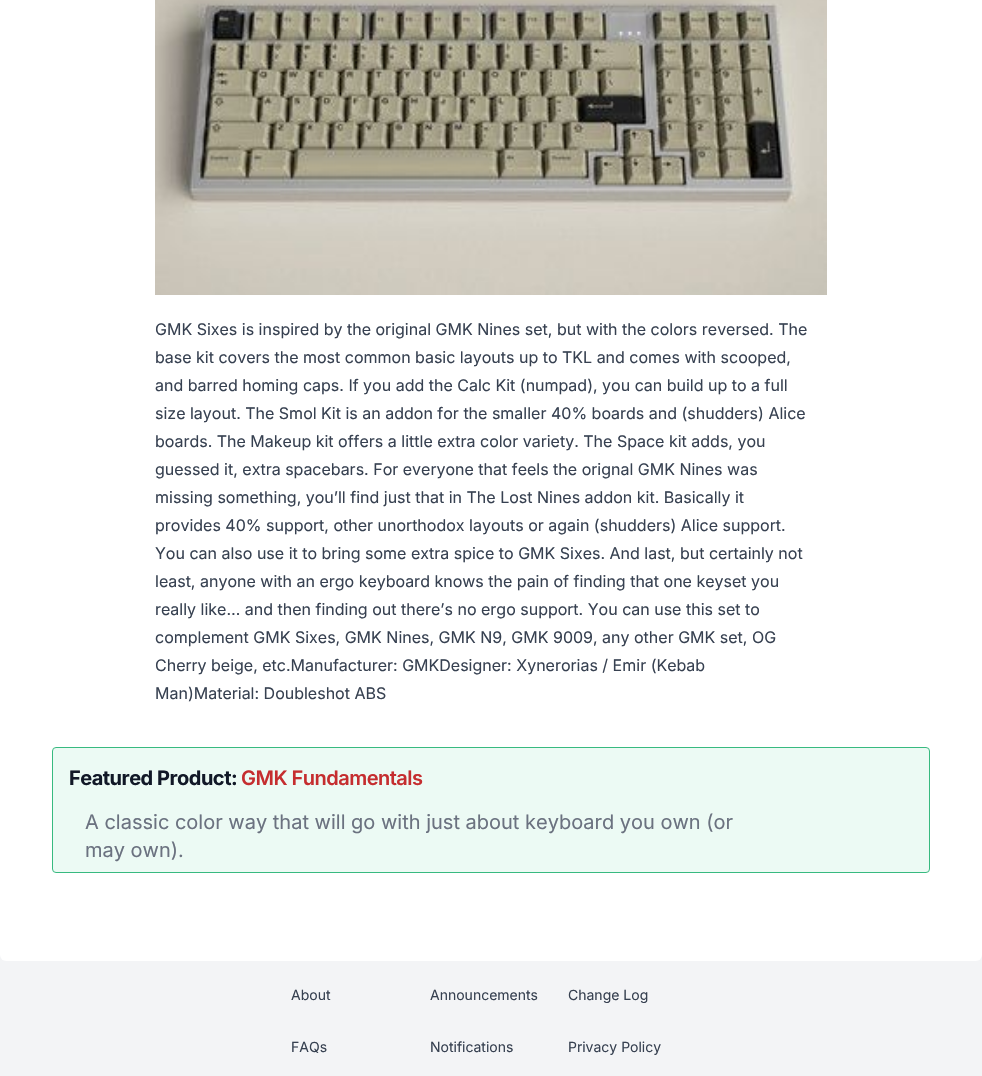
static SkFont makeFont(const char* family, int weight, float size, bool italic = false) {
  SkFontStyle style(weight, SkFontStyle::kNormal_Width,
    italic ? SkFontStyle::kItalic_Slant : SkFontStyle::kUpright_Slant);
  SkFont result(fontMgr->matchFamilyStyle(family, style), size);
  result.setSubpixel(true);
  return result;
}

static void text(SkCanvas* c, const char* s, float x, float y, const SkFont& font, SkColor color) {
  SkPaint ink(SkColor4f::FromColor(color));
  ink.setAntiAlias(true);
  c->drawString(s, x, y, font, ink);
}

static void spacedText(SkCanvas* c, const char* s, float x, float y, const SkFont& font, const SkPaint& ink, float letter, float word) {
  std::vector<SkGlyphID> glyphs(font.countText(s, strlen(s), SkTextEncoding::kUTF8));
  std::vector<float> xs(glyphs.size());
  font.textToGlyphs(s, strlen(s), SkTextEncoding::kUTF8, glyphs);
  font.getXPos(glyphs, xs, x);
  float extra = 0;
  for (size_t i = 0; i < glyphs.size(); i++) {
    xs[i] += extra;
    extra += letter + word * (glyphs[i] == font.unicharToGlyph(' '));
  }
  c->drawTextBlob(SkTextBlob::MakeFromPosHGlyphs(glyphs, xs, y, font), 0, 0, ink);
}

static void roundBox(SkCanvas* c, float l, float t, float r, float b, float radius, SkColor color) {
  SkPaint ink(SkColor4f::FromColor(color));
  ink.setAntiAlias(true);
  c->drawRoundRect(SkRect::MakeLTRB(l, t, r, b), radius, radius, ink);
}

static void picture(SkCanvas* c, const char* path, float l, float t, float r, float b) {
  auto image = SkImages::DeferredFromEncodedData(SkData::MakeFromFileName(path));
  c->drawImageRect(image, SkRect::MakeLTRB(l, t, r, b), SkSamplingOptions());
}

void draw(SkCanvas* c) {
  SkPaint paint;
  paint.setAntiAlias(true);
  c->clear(0xfff3f4f6);
  roundBox(c, 0, -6, 982, 961, 6, 0xffffffff);
  picture(c, "img_01.png", 155, 0, 827, 295);
  SkFont face1 = makeFont("Inter", 400, 16);
  text(c, "GMK Sixes is inspired by the original GMK Nines set, but with the colors reversed. The", 155, 335, face1, 0xff374151);
  text(c, "base kit covers the most common basic layouts up to TKL and comes with scooped,", 155, 363, face1, 0xff374151);
  text(c, "and barred homing caps. If you add the Calc Kit (numpad), you can build up to a full", 155, 391, face1, 0xff374151);
  text(c, "size layout. The Smol Kit is an addon for the smaller 40% boards and (shudders) Alice", 155, 419, face1, 0xff374151);
  text(c, "boards. The Makeup kit offers a little extra color variety. The Space kit adds, you", 155, 447, face1, 0xff374151);
  text(c, "guessed it, extra spacebars. For everyone that feels the orignal GMK Nines was", 155, 475, face1, 0xff374151);
  text(c, "missing something, you’ll find just that in The Lost Nines addon kit. Basically it", 155, 503, face1, 0xff374151);
  text(c, "provides 40% support, other unorthodox layouts or again (shudders) Alice support.", 155, 531, face1, 0xff374151);
  text(c, "You can also use it to bring some extra spice to GMK Sixes. And last, but certainly not", 155, 559, face1, 0xff374151);
  text(c, "least, anyone with an ergo keyboard knows the pain of finding that one keyset you", 155, 587, face1, 0xff374151);
  text(c, "really like… and then finding out there’s no ergo support. You can use this set to", 155, 615, face1, 0xff374151);
  text(c, "complement GMK Sixes, GMK Nines, GMK N9, GMK 9009, any other GMK set, OG", 155, 643, face1, 0xff374151);
  text(c, "Cherry beige, etc.Manufacturer: GMKDesigner: Xynerorias / Emir (Kebab", 155, 671, face1, 0xff374151);
  text(c, "Man)Material: Doubleshot ABS", 155, 699, face1, 0xff374151);
  paint.setColor(0xffecfaf4);
  c->drawRoundRect(SkRect::MakeLTRB(52.5f, 747.5f, 929.5f, 872.5f), 3.5f, 3.5f, paint);
  paint.setStyle(SkPaint::kStroke_Style);
  paint.setStrokeWidth(1);
  paint.setColor(0xff38ba80);
  c->drawRoundRect(SkRect::MakeLTRB(52.5f, 747.5f, 929.5f, 872.5f), 3.5f, 3.5f, paint);
  SkFont face2 = makeFont("Inter", 700, 20);
  paint.setStyle(SkPaint::kFill_Style);
  paint.setColor(0xff111827);
  spacedText(c, "Featured Product:", 69, 785, face2, paint, -0.5f, 0);
  SkFont face3 = makeFont("Inter", 600, 20);
  paint.setColor(0xffc52d2f);
  spacedText(c, "GMK Fundamentals", 241, 785, face3, paint, -0.5f, 0);
  SkFont face4 = makeFont("Inter", 400, 20);
  text(c, "A classic color way that will go with just about keyboard you own (or", 85, 829, face4, 0xff6b7280);
  text(c, "may own).", 85, 857, face4, 0xff6b7280);
  SkFont face5 = makeFont("Inter", 400, 14);
  text(c, "About", 291, 1000, face5, 0xff374151);
  text(c, "Announcements", 430, 1000, face5, 0xff374151);
  text(c, "Change Log", 568, 1000, face5, 0xff374151);
  text(c, "FAQs", 291, 1052, face5, 0xff374151);
  text(c, "Notifications", 430, 1052, face5, 0xff374151);
  text(c, "Privacy Policy", 568, 1052, face5, 0xff374151);
}
